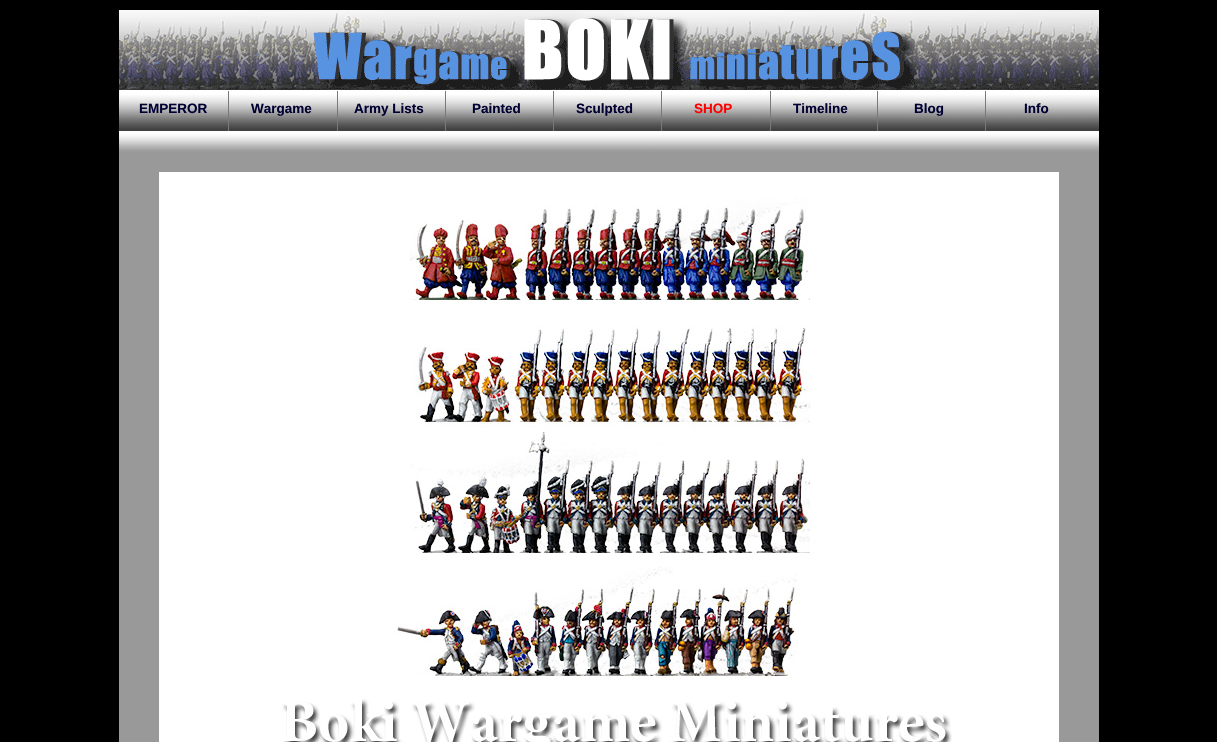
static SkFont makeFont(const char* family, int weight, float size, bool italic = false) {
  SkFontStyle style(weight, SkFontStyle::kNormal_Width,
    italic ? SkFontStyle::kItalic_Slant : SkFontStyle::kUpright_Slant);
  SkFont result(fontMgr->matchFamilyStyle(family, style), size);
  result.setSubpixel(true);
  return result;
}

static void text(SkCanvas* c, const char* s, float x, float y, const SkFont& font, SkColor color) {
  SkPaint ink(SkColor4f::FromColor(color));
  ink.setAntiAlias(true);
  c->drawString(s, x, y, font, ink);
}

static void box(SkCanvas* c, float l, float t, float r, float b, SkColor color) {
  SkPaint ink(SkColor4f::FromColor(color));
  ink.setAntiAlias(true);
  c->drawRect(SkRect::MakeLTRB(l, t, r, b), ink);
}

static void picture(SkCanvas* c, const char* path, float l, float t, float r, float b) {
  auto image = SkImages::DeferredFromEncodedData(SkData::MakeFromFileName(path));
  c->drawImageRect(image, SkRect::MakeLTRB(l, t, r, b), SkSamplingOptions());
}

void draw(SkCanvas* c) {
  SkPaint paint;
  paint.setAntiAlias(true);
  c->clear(0xff000000);
  picture(c, "img_01.png", 119, 10, 1099, 90);
  picture(c, "img_02.png", 119, 91, 1099, 131);
  box(c, 119, 90, 1099, 91, 0xffffffff);
  box(c, 119, 131, 1099, 132, 0xffffffff);
  SkFont face1 = makeFont("Liberation Sans", 700, 13.5f);
  text(c, "EMPEROR", 139, 113, face1, 0xff000033);
  text(c, "Wargame", 251, 113, face1, 0xff000033);
  text(c, "Army Lists", 354, 113, face1, 0xff000033);
  text(c, "Painted", 472, 113, face1, 0xff000033);
  text(c, "Sculpted", 576, 113, face1, 0xff000033);
  text(c, "SHOP", 694, 113, face1, 0xffff0000);
  text(c, "Timeline", 793, 113, face1, 0xff000033);
  text(c, "Blog", 914, 113, face1, 0xff000033);
  text(c, "Info", 1024, 113, face1, 0xff000033);
  box(c, 119, 150, 1099, 152, 0xff9c9d9d);
  picture(c, "img_03.png", 119, 132, 1099, 150);
  box(c, 119, 152, 1099, 742, 0xff999999);
  picture(c, "img_04.png", 159, 172, 1059, 742);
}
